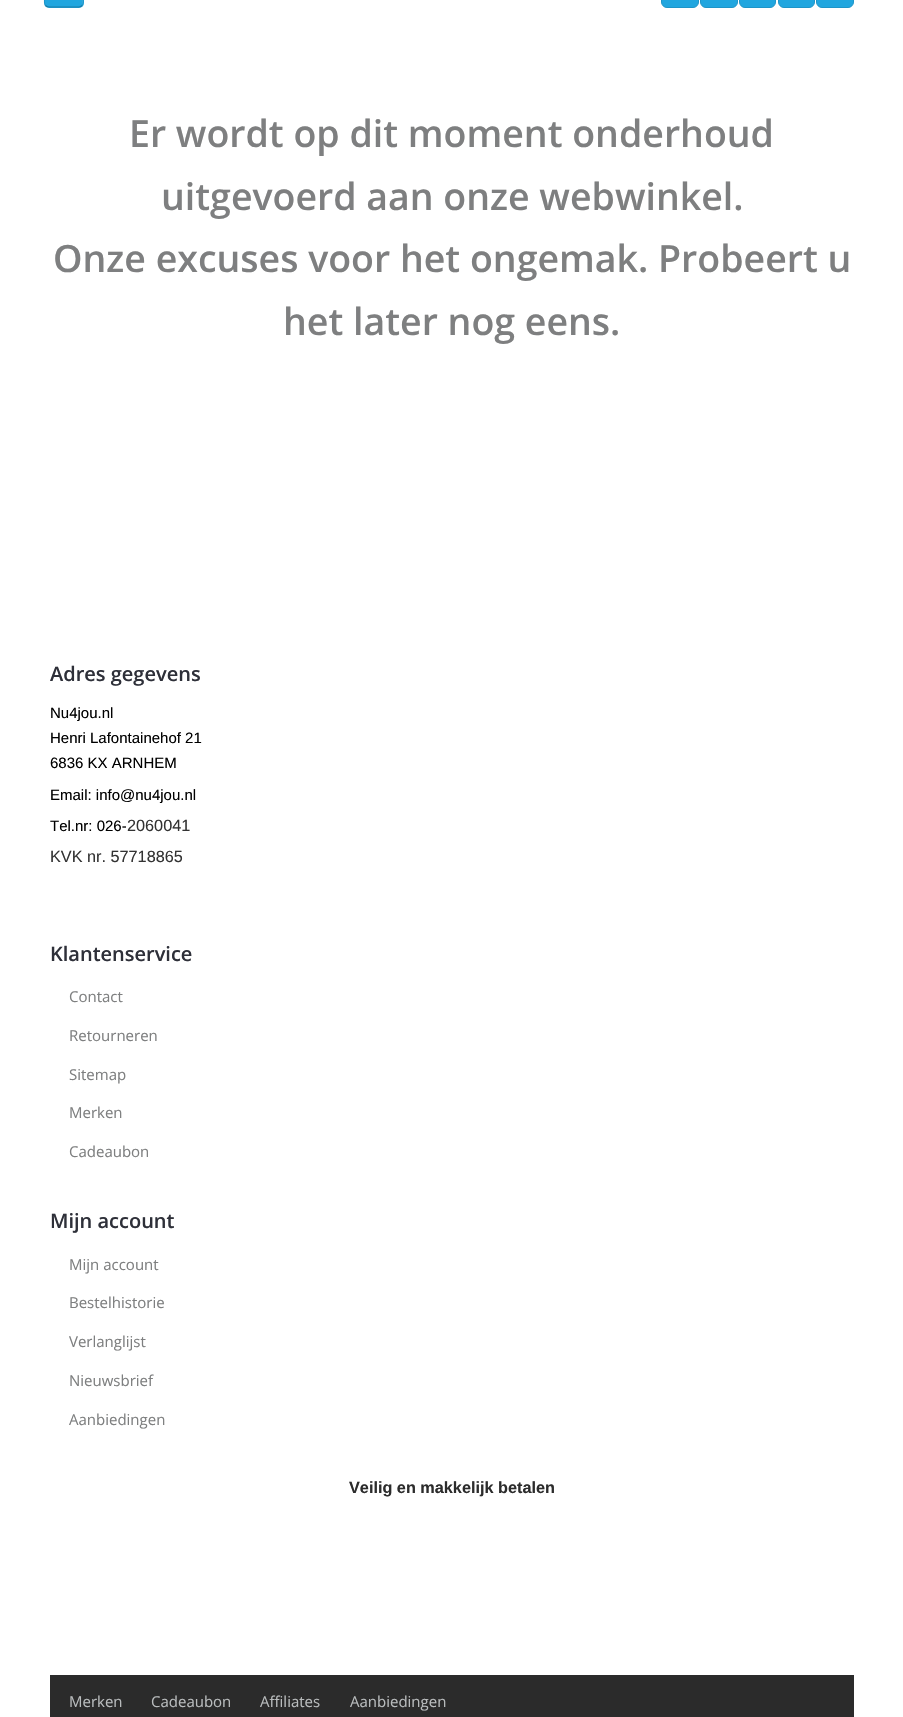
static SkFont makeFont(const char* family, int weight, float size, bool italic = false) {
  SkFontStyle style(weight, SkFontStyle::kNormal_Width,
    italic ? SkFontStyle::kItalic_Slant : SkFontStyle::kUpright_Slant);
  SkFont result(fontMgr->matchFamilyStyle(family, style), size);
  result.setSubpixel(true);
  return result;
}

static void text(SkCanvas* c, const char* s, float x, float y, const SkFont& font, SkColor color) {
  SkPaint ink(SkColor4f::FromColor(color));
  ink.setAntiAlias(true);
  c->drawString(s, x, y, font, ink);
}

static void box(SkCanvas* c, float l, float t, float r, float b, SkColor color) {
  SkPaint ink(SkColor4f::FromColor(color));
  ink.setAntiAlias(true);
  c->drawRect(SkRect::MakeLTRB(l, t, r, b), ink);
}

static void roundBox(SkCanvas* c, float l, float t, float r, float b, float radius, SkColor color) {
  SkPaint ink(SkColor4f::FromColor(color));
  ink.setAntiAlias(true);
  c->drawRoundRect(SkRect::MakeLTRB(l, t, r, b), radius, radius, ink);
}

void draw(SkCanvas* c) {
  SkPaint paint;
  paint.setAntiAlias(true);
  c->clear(0xffffffff);
  roundBox(c, 44, -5, 84, 8, 5, 0xff21a6df);
  paint.setColor(0xff37afe2);
  c->drawPath(SkPathBuilder().moveTo(49, -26).lineTo(80.5f, -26).cubicTo(83, -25, 82, -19, 82, -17.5f).lineTo(82, 4.5f).cubicTo(82.5f, 4, 83, 3, 83, 2).lineTo(83, -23).cubicTo(83, -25, 81, -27, 79, -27).lineTo(49, -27).cubicTo(47, -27, 45, -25, 45, -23).lineTo(45, -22).cubicTo(45, -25, 47, -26, 49, -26).close().detach(), paint);
  paint.setStyle(SkPaint::kStroke_Style);
  paint.setStrokeWidth(1.2f);
  paint.setColor(0x40000000);
  c->drawPath(SkPathBuilder().moveTo(82, 5.5f).cubicTo(81, 6.5f, 80, 7, 79, 7).lineTo(49, 7).cubicTo(47.5f, 7, 46.5f, 6.5f, 45.5f, 5.5f).detach(), paint);
  paint.setColor(0x1a000000);
  c->drawPath(SkPathBuilder().moveTo(45.5f, 5.5f).cubicTo(43.5f, 3.5f, 44.5f, 0.5f, 44.5f, -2).lineTo(44.5f, -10.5f).cubicTo(44.5f, -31.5f, 42, -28, 64, -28).cubicTo(85.5f, -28, 83, -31.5f, 83, -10.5f).lineTo(83, -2).cubicTo(83, 0.5f, 84, 3.5f, 82, 5.5f).detach(), paint);
  paint.setStyle(SkPaint::kFill_Style);
  paint.setColor(0xff21a6df);
  c->drawRoundRect(SkRect::MakeLTRB(661.5f, -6.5f, 698.5f, 7.5f), 5.5f, 5.5f, paint);
  paint.setStyle(SkPaint::kStroke_Style);
  paint.setStrokeWidth(1);
  paint.setColor(0xff1e95c8);
  c->drawRoundRect(SkRect::MakeLTRB(661.5f, -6.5f, 698.5f, 7.5f), 5.5f, 5.5f, paint);
  paint.setStyle(SkPaint::kFill_Style);
  paint.setColor(0xff21a6df);
  c->drawRoundRect(SkRect::MakeLTRB(700.5f, -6.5f, 737.5f, 7.5f), 5.5f, 5.5f, paint);
  paint.setStyle(SkPaint::kStroke_Style);
  paint.setColor(0xff1e95c8);
  c->drawRoundRect(SkRect::MakeLTRB(700.5f, -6.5f, 737.5f, 7.5f), 5.5f, 5.5f, paint);
  paint.setStyle(SkPaint::kFill_Style);
  paint.setColor(0xff21a6df);
  c->drawRoundRect(SkRect::MakeLTRB(739.5f, -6.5f, 775.5f, 7.5f), 5.5f, 5.5f, paint);
  paint.setStyle(SkPaint::kStroke_Style);
  paint.setColor(0xff1e95c8);
  c->drawRoundRect(SkRect::MakeLTRB(739.5f, -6.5f, 775.5f, 7.5f), 5.5f, 5.5f, paint);
  paint.setStyle(SkPaint::kFill_Style);
  paint.setColor(0xff21a6df);
  c->drawRoundRect(SkRect::MakeLTRB(778.5f, -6.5f, 814.5f, 7.5f), 5.5f, 5.5f, paint);
  paint.setStyle(SkPaint::kStroke_Style);
  paint.setColor(0xff1e95c8);
  c->drawRoundRect(SkRect::MakeLTRB(778.5f, -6.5f, 814.5f, 7.5f), 5.5f, 5.5f, paint);
  paint.setStyle(SkPaint::kFill_Style);
  paint.setColor(0xff21a6df);
  c->drawRoundRect(SkRect::MakeLTRB(816.5f, -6.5f, 853.5f, 7.5f), 5.5f, 5.5f, paint);
  paint.setStyle(SkPaint::kStroke_Style);
  paint.setColor(0xff1e95c8);
  c->drawRoundRect(SkRect::MakeLTRB(816.5f, -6.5f, 853.5f, 7.5f), 5.5f, 5.5f, paint);
  SkFont face1 = makeFont("Open Sans", 600, 37.5f);
  text(c, "Er wordt op dit moment onderhoud", 129, 147, face1, 0xff7e7f80);
  text(c, "uitgevoerd aan onze webwinkel.", 161, 210, face1, 0xff7e7f80);
  text(c, "Onze excuses voor het ongemak. Probeert u", 53, 272, face1, 0xff7e7f80);
  text(c, "het later nog eens.", 283, 335, face1, 0xff7e7f80);
  SkFont face2 = makeFont("Open Sans", 600, 20);
  text(c, "Adres gegevens", 50, 681, face2, 0xff2e3039);
  SkFont face3 = makeFont("Liberation Sans", 400, 15);
  text(c, "Nu4jou.nl", 50, 718, face3, 0xff000000);
  text(c, "Henri Lafontainehof 21", 50, 743, face3, 0xff000000);
  text(c, "6836 KX ARNHEM", 50, 768, face3, 0xff000000);
  text(c, "Email: info@nu4jou.nl", 50, 800, face3, 0xff000000);
  text(c, "Tel.nr: 026-", 50, 831, face3, 0xff000000);
  SkFont face4 = makeFont("Liberation Sans", 400, 16.25f);
  text(c, "2060041", 127, 831, face4, 0xff333333);
  box(c, 126, 826, 127, 828, 0xffffffff);
  text(c, "KVK nr. 57718865", 50, 862, face4, 0xff333333);
  text(c, "Klantenservice", 50, 961, face2, 0xff2e3039);
  SkFont face5 = makeFont("Open Sans", 400, 15);
  text(c, "Contact", 69, 1002, face5, 0xff7e7f80);
  text(c, "Retourneren", 69, 1041, face5, 0xff7e7f80);
  text(c, "Sitemap", 69, 1080, face5, 0xff7e7f80);
  text(c, "Merken", 69, 1118, face5, 0xff7e7f80);
  text(c, "Cadeaubon", 69, 1157, face5, 0xff7e7f80);
  text(c, "Mijn account", 50, 1228, face2, 0xff2e3039);
  text(c, "Mijn account", 69, 1270, face5, 0xff7e7f80);
  text(c, "Bestelhistorie", 69, 1308, face5, 0xff7e7f80);
  text(c, "Verlanglijst", 69, 1347, face5, 0xff7e7f80);
  text(c, "Nieuwsbrief", 69, 1386, face5, 0xff7e7f80);
  text(c, "Aanbiedingen", 69, 1425, face5, 0xff7e7f80);
  SkFont face6 = makeFont("Liberation Sans", 700, 16.25f);
  text(c, "Veilig en makkelijk betalen", 349, 1493, face6, 0xff2c2c2c);
  box(c, 50, 1675, 854, 1717, 0xff2b2b2b);
  text(c, "Merken", 69, 1707, face5, 0xffb9bcbd);
  text(c, "Cadeaubon", 151, 1707, face5, 0xffb9bcbd);
  text(c, "Affiliates", 260, 1707, face5, 0xffb9bcbd);
  text(c, "Aanbiedingen", 350, 1707, face5, 0xffb9bcbd);
}
